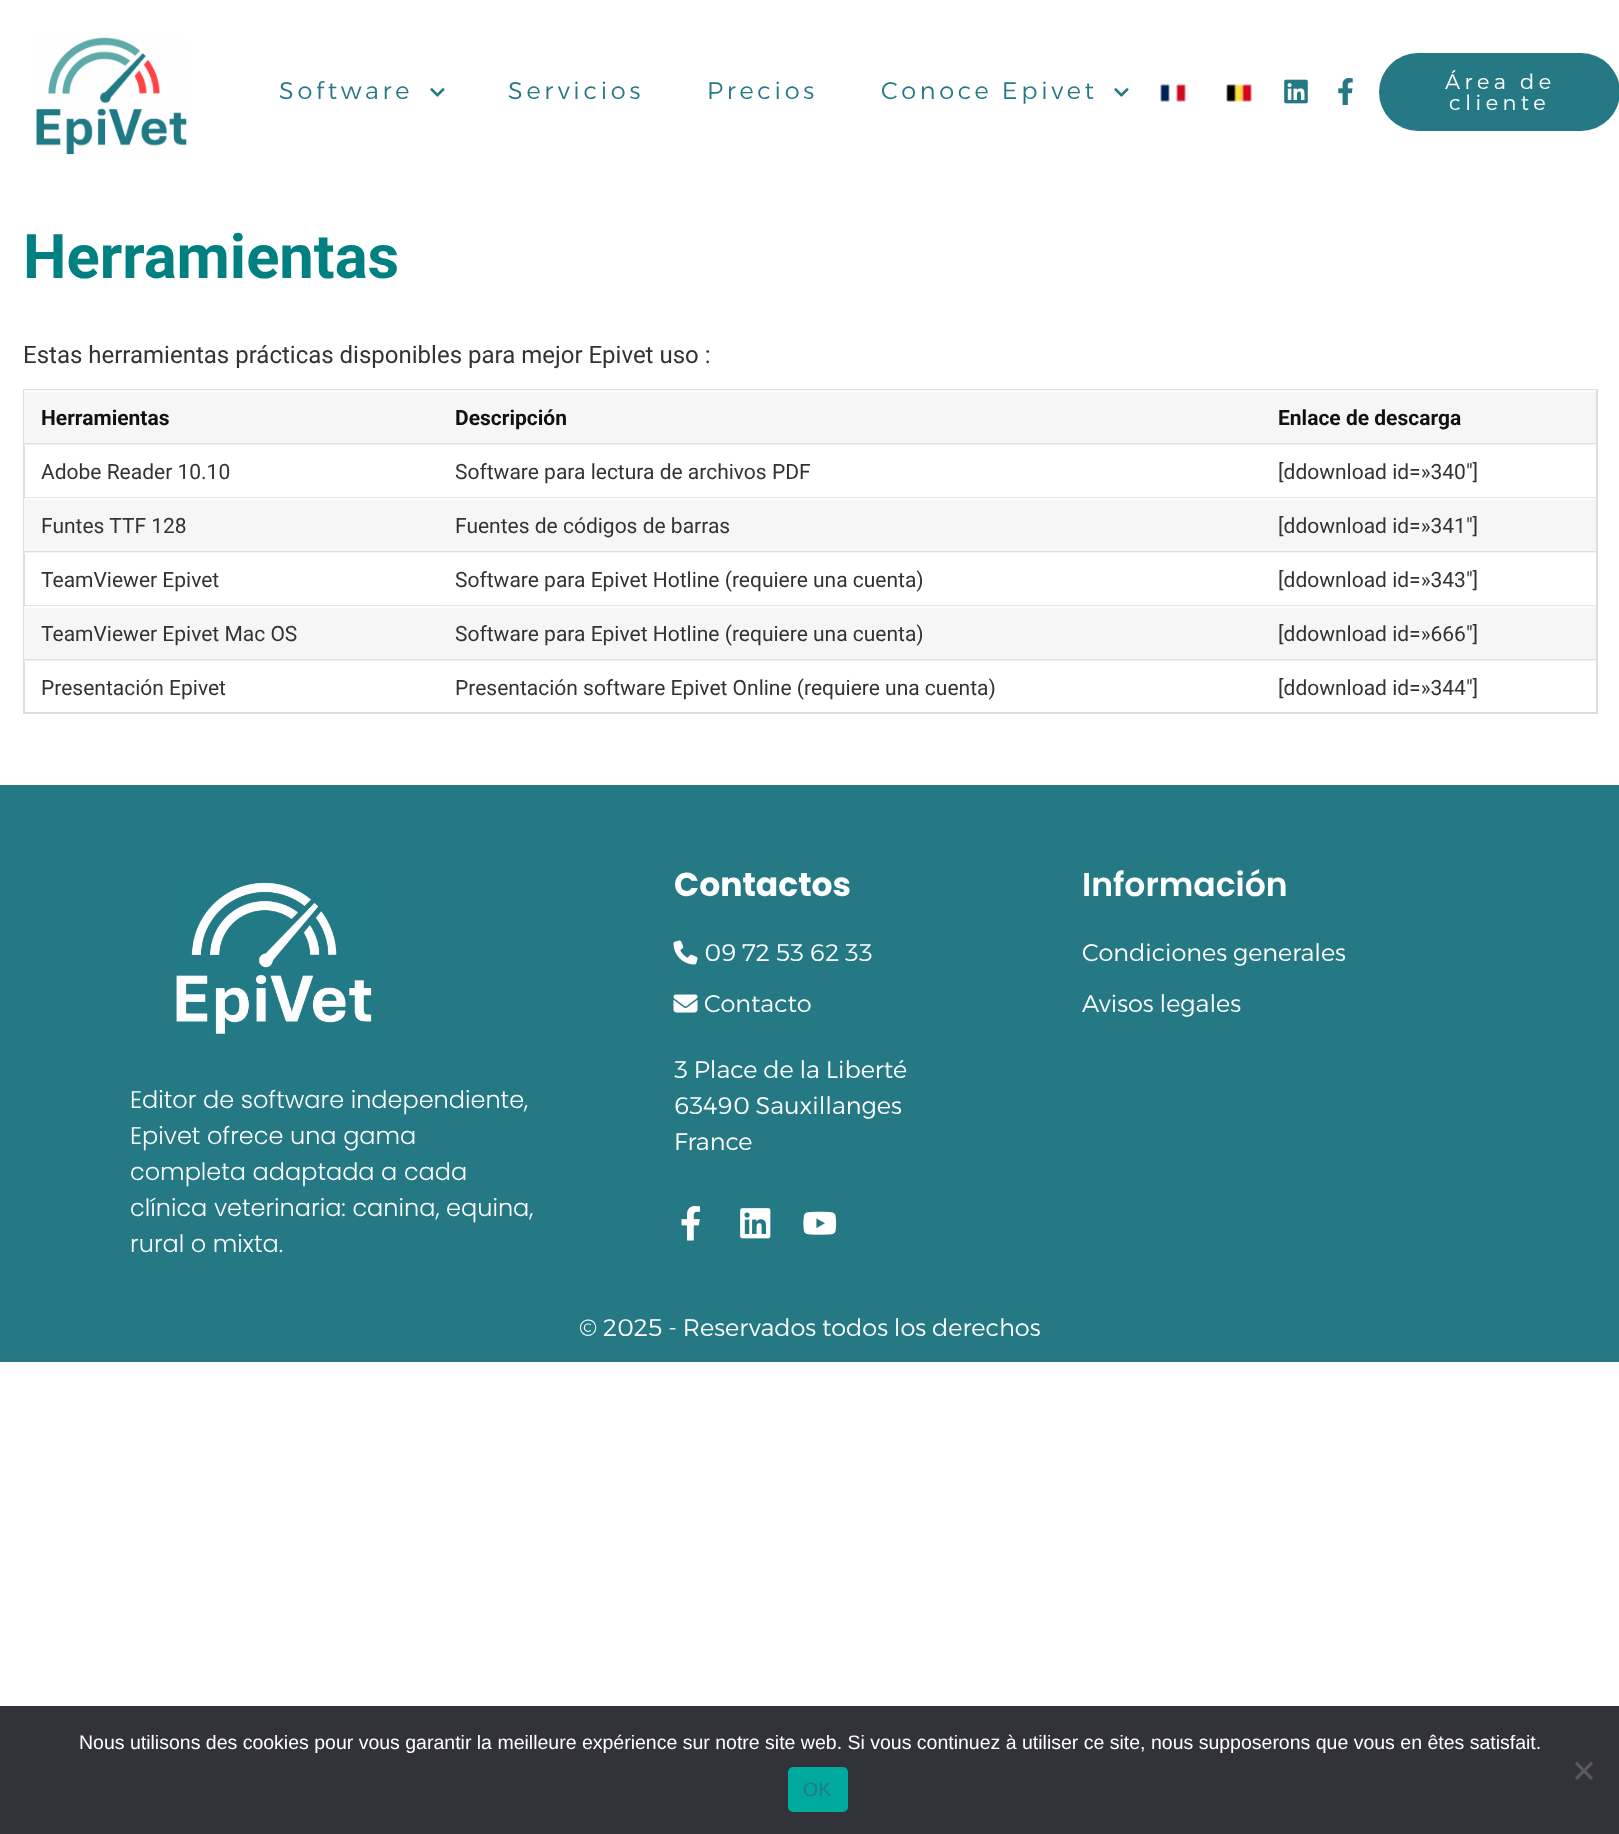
<svg xmlns="http://www.w3.org/2000/svg" width="1619" height="1834">
<rect width="100%" height="100%" fill="#fff"/>
<rect x="440" y="660" width="1156" height="1" fill="#f5f5f5"/>
<rect x="440" y="552" width="1156" height="1" fill="#f5f5f5"/>
<rect x="440" y="444" width="1156" height="1" fill="#f5f5f5"/>
<image x="36" y="37" width="151" height="118" href="media/1.png"/>
<text x="279" y="99" style="font-family:Alexandria;font-size:24px;font-weight:300;letter-spacing:3.75px;fill:#257985">Software</text>
<image x="430" y="88" width="15" height="9" href="media/2.png"/>
<text x="508" y="99" style="font-family:Alexandria;font-size:24px;font-weight:300;letter-spacing:3.75px;fill:#257985">Servicios</text>
<text x="707" y="99" style="font-family:Alexandria;font-size:24px;font-weight:300;letter-spacing:3.75px;fill:#257985">Precios</text>
<text x="881" y="99" style="font-family:Alexandria;font-size:24px;font-weight:300;letter-spacing:3.75px;fill:#257985">Conoce Epivet</text>
<image x="1114" y="88" width="15" height="9" href="media/2.png"/>
<image x="1160" y="84" width="26" height="18" href="media/3.png"/>
<image x="1226" y="84" width="26" height="18" href="media/4.png"/>
<image x="1284" y="79" width="24" height="25" href="media/5.png"/>
<image x="1338" y="78" width="15" height="27" href="media/6.png"/>
<rect x="1379" y="53" width="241" height="78" rx="39" fill="#257985"/>
<text x="1445" y="89" style="font-family:Alexandria;font-size:21px;font-weight:300;letter-spacing:4.5px;fill:#fff">Área de</text>
<text x="1449" y="110" style="font-family:Alexandria;font-size:21px;font-weight:300;letter-spacing:4.5px;fill:#fff">cliente</text>
<text x="23" y="278" style="font-family:Roboto;font-size:61.5px;font-weight:bold;fill:#008080">Herramientas</text>
<text x="23" y="363" style="font-family:Roboto;font-size:24px;fill:#333">Estas herramientas prácticas disponibles para mejor Epivet uso :</text>
<rect x="24" y="390" width="1573" height="323" fill="none" stroke="#e0dddd" stroke-width="2"/>
<rect x="24" y="392" width="416" height="52" fill="#f6f6f6"/>
<rect x="24" y="390" width="1572" height="2" fill="#fbfbfb"/>
<rect x="24" y="443" width="416" height="2" fill="#0000001a"/>
<text x="41" y="425" style="font-family:Roboto;font-size:21px;font-weight:bold;fill:#111">Herramientas</text>
<rect x="440" y="392" width="1156" height="51" fill="#f6f6f6"/>
<rect x="440" y="443" width="1156" height="1" fill="#ddd"/>
<text x="455" y="425" style="font-family:Roboto;font-size:21px;font-weight:bold;fill:#111">Descripción</text>
<text x="1278" y="425" style="font-family:Roboto;font-size:21px;font-weight:bold;fill:#111">Enlace de descarga</text>
<rect x="24" y="444" width="416" height="2" fill="#ffffff99"/>
<rect x="24" y="497" width="416" height="1" fill="#0000001a"/>
<text x="41" y="479" style="font-family:Roboto;font-size:21px;fill:#333">Adobe Reader 10.10</text>
<rect x="440" y="497" width="1156" height="1" fill="#e6e6e6"/>
<text x="455" y="479" style="font-family:Roboto;font-size:21px;fill:#333">Software para lectura de archivos PDF</text>
<text x="1278" y="479" style="font-family:Roboto;font-size:21px;fill:#333">[ddownload id=»340″]</text>
<rect x="24" y="500" width="1572" height="52" fill="#f6f6f6"/>
<rect x="440" y="551" width="1156" height="1" fill="#ddd"/>
<rect x="24" y="498" width="1572" height="2" fill="#fbfbfb"/>
<rect x="24" y="551" width="416" height="2" fill="#0000001a"/>
<text x="41" y="533" style="font-family:Roboto;font-size:21px;fill:#333">Funtes TTF 128</text>
<text x="455" y="533" style="font-family:Roboto;font-size:21px;fill:#333">Fuentes de códigos de barras</text>
<text x="1278" y="533" style="font-family:Roboto;font-size:21px;fill:#333">[ddownload id=»341″]</text>
<rect x="24" y="552" width="416" height="2" fill="#ffffff99"/>
<rect x="24" y="605" width="416" height="1" fill="#0000001a"/>
<text x="41" y="587" style="font-family:Roboto;font-size:21px;fill:#333">TeamViewer Epivet</text>
<rect x="440" y="605" width="1156" height="1" fill="#e6e6e6"/>
<text x="455" y="587" style="font-family:Roboto;font-size:21px;fill:#333">Software para Epivet Hotline (requiere una cuenta)</text>
<text x="1278" y="587" style="font-family:Roboto;font-size:21px;fill:#333">[ddownload id=»343″]</text>
<rect x="24" y="608" width="1572" height="52" fill="#f6f6f6"/>
<rect x="440" y="659" width="1156" height="1" fill="#ddd"/>
<rect x="24" y="606" width="1572" height="2" fill="#fbfbfb"/>
<rect x="24" y="659" width="416" height="2" fill="#0000001a"/>
<text x="41" y="641" style="font-family:Roboto;font-size:21px;fill:#333">TeamViewer Epivet Mac OS</text>
<text x="455" y="641" style="font-family:Roboto;font-size:21px;fill:#333">Software para Epivet Hotline (requiere una cuenta)</text>
<text x="1278" y="641" style="font-family:Roboto;font-size:21px;fill:#333">[ddownload id=»666″]</text>
<rect x="24" y="660" width="416" height="2" fill="#ffffff99"/>
<text x="41" y="695" style="font-family:Roboto;font-size:21px;fill:#333">Presentación Epivet</text>
<text x="455" y="695" style="font-family:Roboto;font-size:21px;fill:#333">Presentación software Epivet Online (requiere una cuenta)</text>
<text x="1278" y="695" style="font-family:Roboto;font-size:21px;fill:#333">[ddownload id=»344″]</text>
<rect y="785" width="1619" height="577" fill="#257985"/>
<text x="674" y="896" style="font-family:Poppins;font-size:33px;font-weight:bold;fill:#fff">Contactos</text>
<image x="673" y="940" width="25" height="25" href="media/7.png"/>
<text x="704" y="961" style="font-family:Alexandria;font-size:24px;font-weight:300;fill:#fff">09 72 53 62 33</text>
<image x="673" y="994" width="25" height="19" href="media/8.png"/>
<text x="704" y="1012" style="font-family:Alexandria;font-size:24px;font-weight:300;fill:#fff">Contacto</text>
<text x="674" y="1078" style="font-family:Alexandria;font-size:24px;font-weight:300;fill:#fff">3 Place de la Liberté</text>
<text x="674" y="1114" style="font-family:Alexandria;font-size:24px;font-weight:300;fill:#fff">63490 Sauxillanges</text>
<text x="674" y="1150" style="font-family:Alexandria;font-size:24px;font-weight:300;fill:#fff">France</text>
<image x="681" y="1206" width="19" height="35" href="media/9.png"/>
<image x="740" y="1208" width="31" height="31" href="media/10.png"/>
<image x="803" y="1211" width="34" height="24" href="media/11.png"/>
<text x="1082" y="896" style="font-family:Poppins;font-size:33px;font-weight:600;fill:#fff">Información</text>
<text x="1082" y="961" style="font-family:Alexandria;font-size:24px;font-weight:300;fill:#fff">Condiciones generales</text>
<text x="1082" y="1012" style="font-family:Alexandria;font-size:24px;font-weight:300;fill:#fff">Avisos legales</text>
<image x="176" y="882" width="196" height="152" href="media/12.png"/>
<text x="130" y="1108" style="font-family:Poppins;font-size:24px;font-weight:300;fill:#fff">Editor de software independiente,</text>
<text x="130" y="1144" style="font-family:Poppins;font-size:24px;font-weight:300;fill:#fff">Epivet ofrece una gama</text>
<text x="130" y="1180" style="font-family:Poppins;font-size:24px;font-weight:300;fill:#fff">completa adaptada a cada</text>
<text x="130" y="1216" style="font-family:Poppins;font-size:24px;font-weight:300;fill:#fff">clínica veterinaria: canina, equina,</text>
<text x="130" y="1252" style="font-family:Poppins;font-size:24px;font-weight:300;fill:#fff">rural o mixta.</text>
<text x="579" y="1336" style="font-family:Alexandria;font-size:24px;font-weight:300;fill:#fff">© 2025 - Reservados todos los derechos</text>
<rect y="1706" width="1619" height="128" fill="#32323a"/>
<text x="79" y="1749" style="font-family:Liberation Sans;font-size:19.5px;fill:#fff">Nous utilisons des cookies pour vous garantir la meilleure expérience sur notre site web. Si vous continuez à utiliser ce site, nous supposerons que vous en êtes satisfait.</text>
<path d="M1591 1761.5l2 2.5l-16 16l-2-2.5z" fill="#59595d"/>
<path d="M1575 1764l2-2.5l16 16l-2 2.5z" fill="#59595d"/>
<rect x="788" y="1767" width="60" height="45" rx="5" fill="#00a99d"/>
<text x="803" y="1796" style="font-family:Liberation Sans;font-size:19.5px;fill:#257985">OK</text>
</svg>
